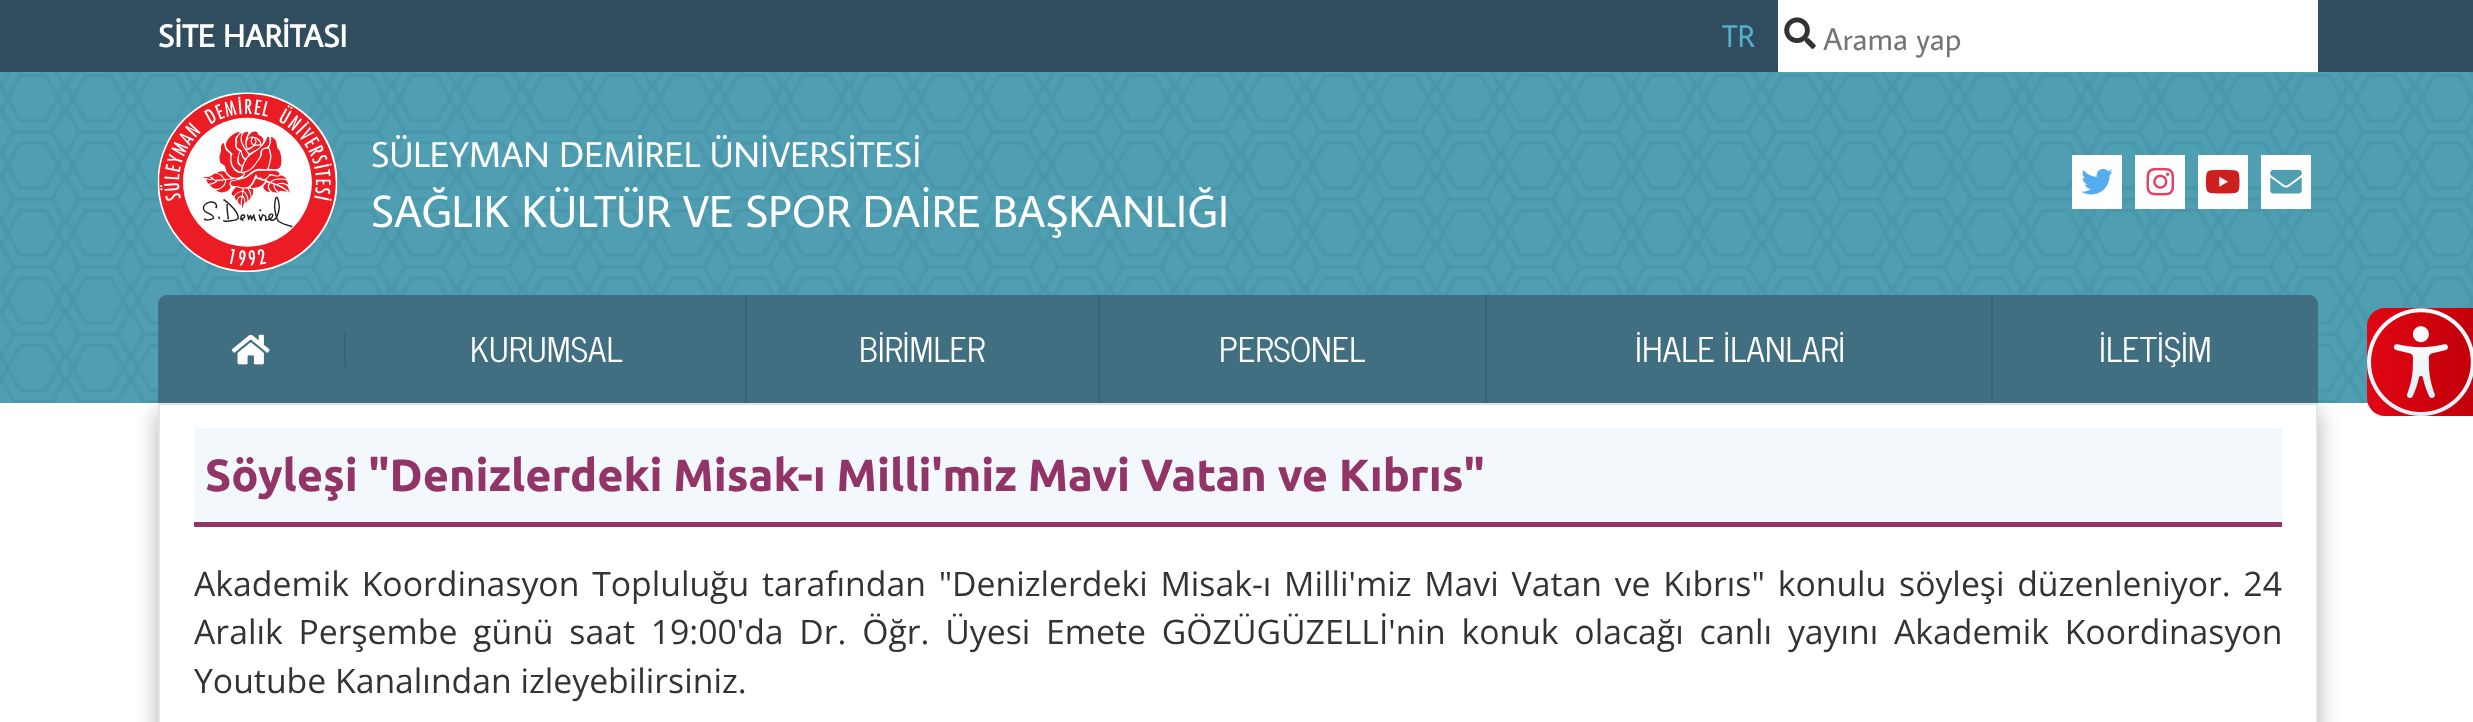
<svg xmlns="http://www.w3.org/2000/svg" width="2473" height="722">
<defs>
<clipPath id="clip1"><path d="M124 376h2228v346h-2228zm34 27h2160v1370h-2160z" clip-rule="evenodd"/></clipPath>
<linearGradient id="g1" gradientUnits="userSpaceOnUse" x1="2364" y1="362" x2="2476" y2="363"><stop offset="0" stop-color="#e10613"/><stop offset="0.99" stop-color="#c2000a"/></linearGradient>
</defs>
<rect width="100%" height="100%" fill="#fff"/>
<rect y="72" width="2473" height="331" fill="#4f9eb2"/>
<image x="0" y="72" width="2473" height="331" href="media/1.png"/>
<rect width="2473" height="72" fill="#2f4d5f"/>
<text x="158" y="47" style="font-family:Average Sans;font-size:31.5px;font-weight:bold;fill:#fff">SİTE HARİTASI</text>
<text x="1722" y="47" style="font-family:Average Sans;font-size:31.5px;fill:#52aec9">TR</text>
<rect x="1778" width="540" height="72" fill="#fff"/>
<image x="1784" y="17" width="32" height="32" href="media/2.png"/>
<text x="1823" y="50" style="font-family:Average Sans;font-size:31.5px;fill:#757575">Arama yap</text>
<image x="157" y="92" width="181" height="180" href="media/3.png"/>
<text x="371" y="167" style="font-family:Average Sans;font-size:36px;fill:#fff">SÜLEYMAN DEMİREL ÜNİVERSİTESİ</text>
<text x="371" y="227" style="font-family:Average Sans;font-size:45px;fill:#fff">SAĞLIK KÜLTÜR VE SPOR DAİRE BAŞKANLIĞI</text>
<rect x="2072" y="155" width="50" height="54" fill="#fff"/>
<image x="2081" y="168" width="32" height="27" href="media/4.png"/>
<rect x="2135" y="155" width="50" height="54" fill="#fff"/>
<image x="2146" y="167" width="29" height="29" href="media/5.png"/>
<rect x="2198" y="155" width="50" height="54" fill="#fff"/>
<image x="2205" y="169" width="35" height="25" href="media/6.png"/>
<rect x="2261" y="155" width="50" height="54" fill="#fff"/>
<image x="2270" y="169" width="32" height="25" href="media/7.png"/>
<g clip-path="url(#clip1)">
<rect x="158" y="410" width="2160" height="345" fill="#0000004d" filter="blur(11px)"/>
</g>
<path d="M167 295h2142c5 0 9 4 9 9v99h-2160v-99c0-5 4-9 9-9z" fill="#3f6f81"/>
<rect x="344" y="333" width="2" height="34" fill="#396474"/>
<image x="231" y="334" width="39" height="31" href="media/8.png"/>
<rect x="745" y="295" width="2" height="108" fill="#396474"/>
<text x="470" y="362" style="font-family:News Cycle;font-size:33.75px;font-weight:500;fill:#fff">KURUMSAL</text>
<rect x="1098" y="295" width="2" height="108" fill="#396474"/>
<text x="859" y="362" style="font-family:News Cycle;font-size:33.75px;font-weight:500;fill:#fff">BİRİMLER</text>
<rect x="1485" y="295" width="2" height="108" fill="#396474"/>
<text x="1219" y="362" style="font-family:News Cycle;font-size:33.75px;font-weight:500;fill:#fff">PERSONEL</text>
<rect x="1991" y="295" width="2" height="108" fill="#396474"/>
<text x="1635" y="362" style="font-family:News Cycle;font-size:33.75px;font-weight:500;fill:#fff">İHALE İLANLARİ</text>
<text x="2099" y="362" style="font-family:News Cycle;font-size:33.75px;font-weight:500;fill:#fff">İLETİŞİM</text>
<path d="M2385 308h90v108h-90c-10 0-18-8-18-18v-72c0-10 8-18 18-18z" fill="url(#g1)"/>
<image x="2367" y="308" width="106" height="108" href="media/9.png"/>
<rect x="159" y="404" width="2158" height="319" fill="none" stroke="#e4e4e4" stroke-width="2"/>
<rect x="194" y="428" width="2088" height="94" fill="#f3f8fd"/>
<rect x="194" y="522" width="2088" height="5" fill="#933469"/>
<text x="205" y="491" style="font-family:Ubuntu;font-size:45px;font-weight:bold;fill:#933469">Söyleşi "Denizlerdeki Misak-ı Milli'miz Mavi Vatan ve Kıbrıs"</text>
<text x="194" y="596" word-spacing="4" style="font-family:Open Sans;font-size:33.75px;fill:#333">Akademik Koordinasyon Topluluğu tarafından "Denizlerdeki Misak-ı Milli'miz Mavi Vatan ve Kıbrıs" konulu söyleşi düzenleniyor. 24</text>
<text x="194" y="644" word-spacing="7" style="font-family:Open Sans;font-size:33.75px;fill:#333">Aralık Perşembe günü saat 19:00'da Dr. Öğr. Üyesi Emete GÖZÜGÜZELLİ'nin konuk olacağı canlı yayını Akademik Koordinasyon</text>
<text x="194" y="693" style="font-family:Open Sans;font-size:33.75px;fill:#333">Youtube Kanalından izleyebilirsiniz.</text>
</svg>
